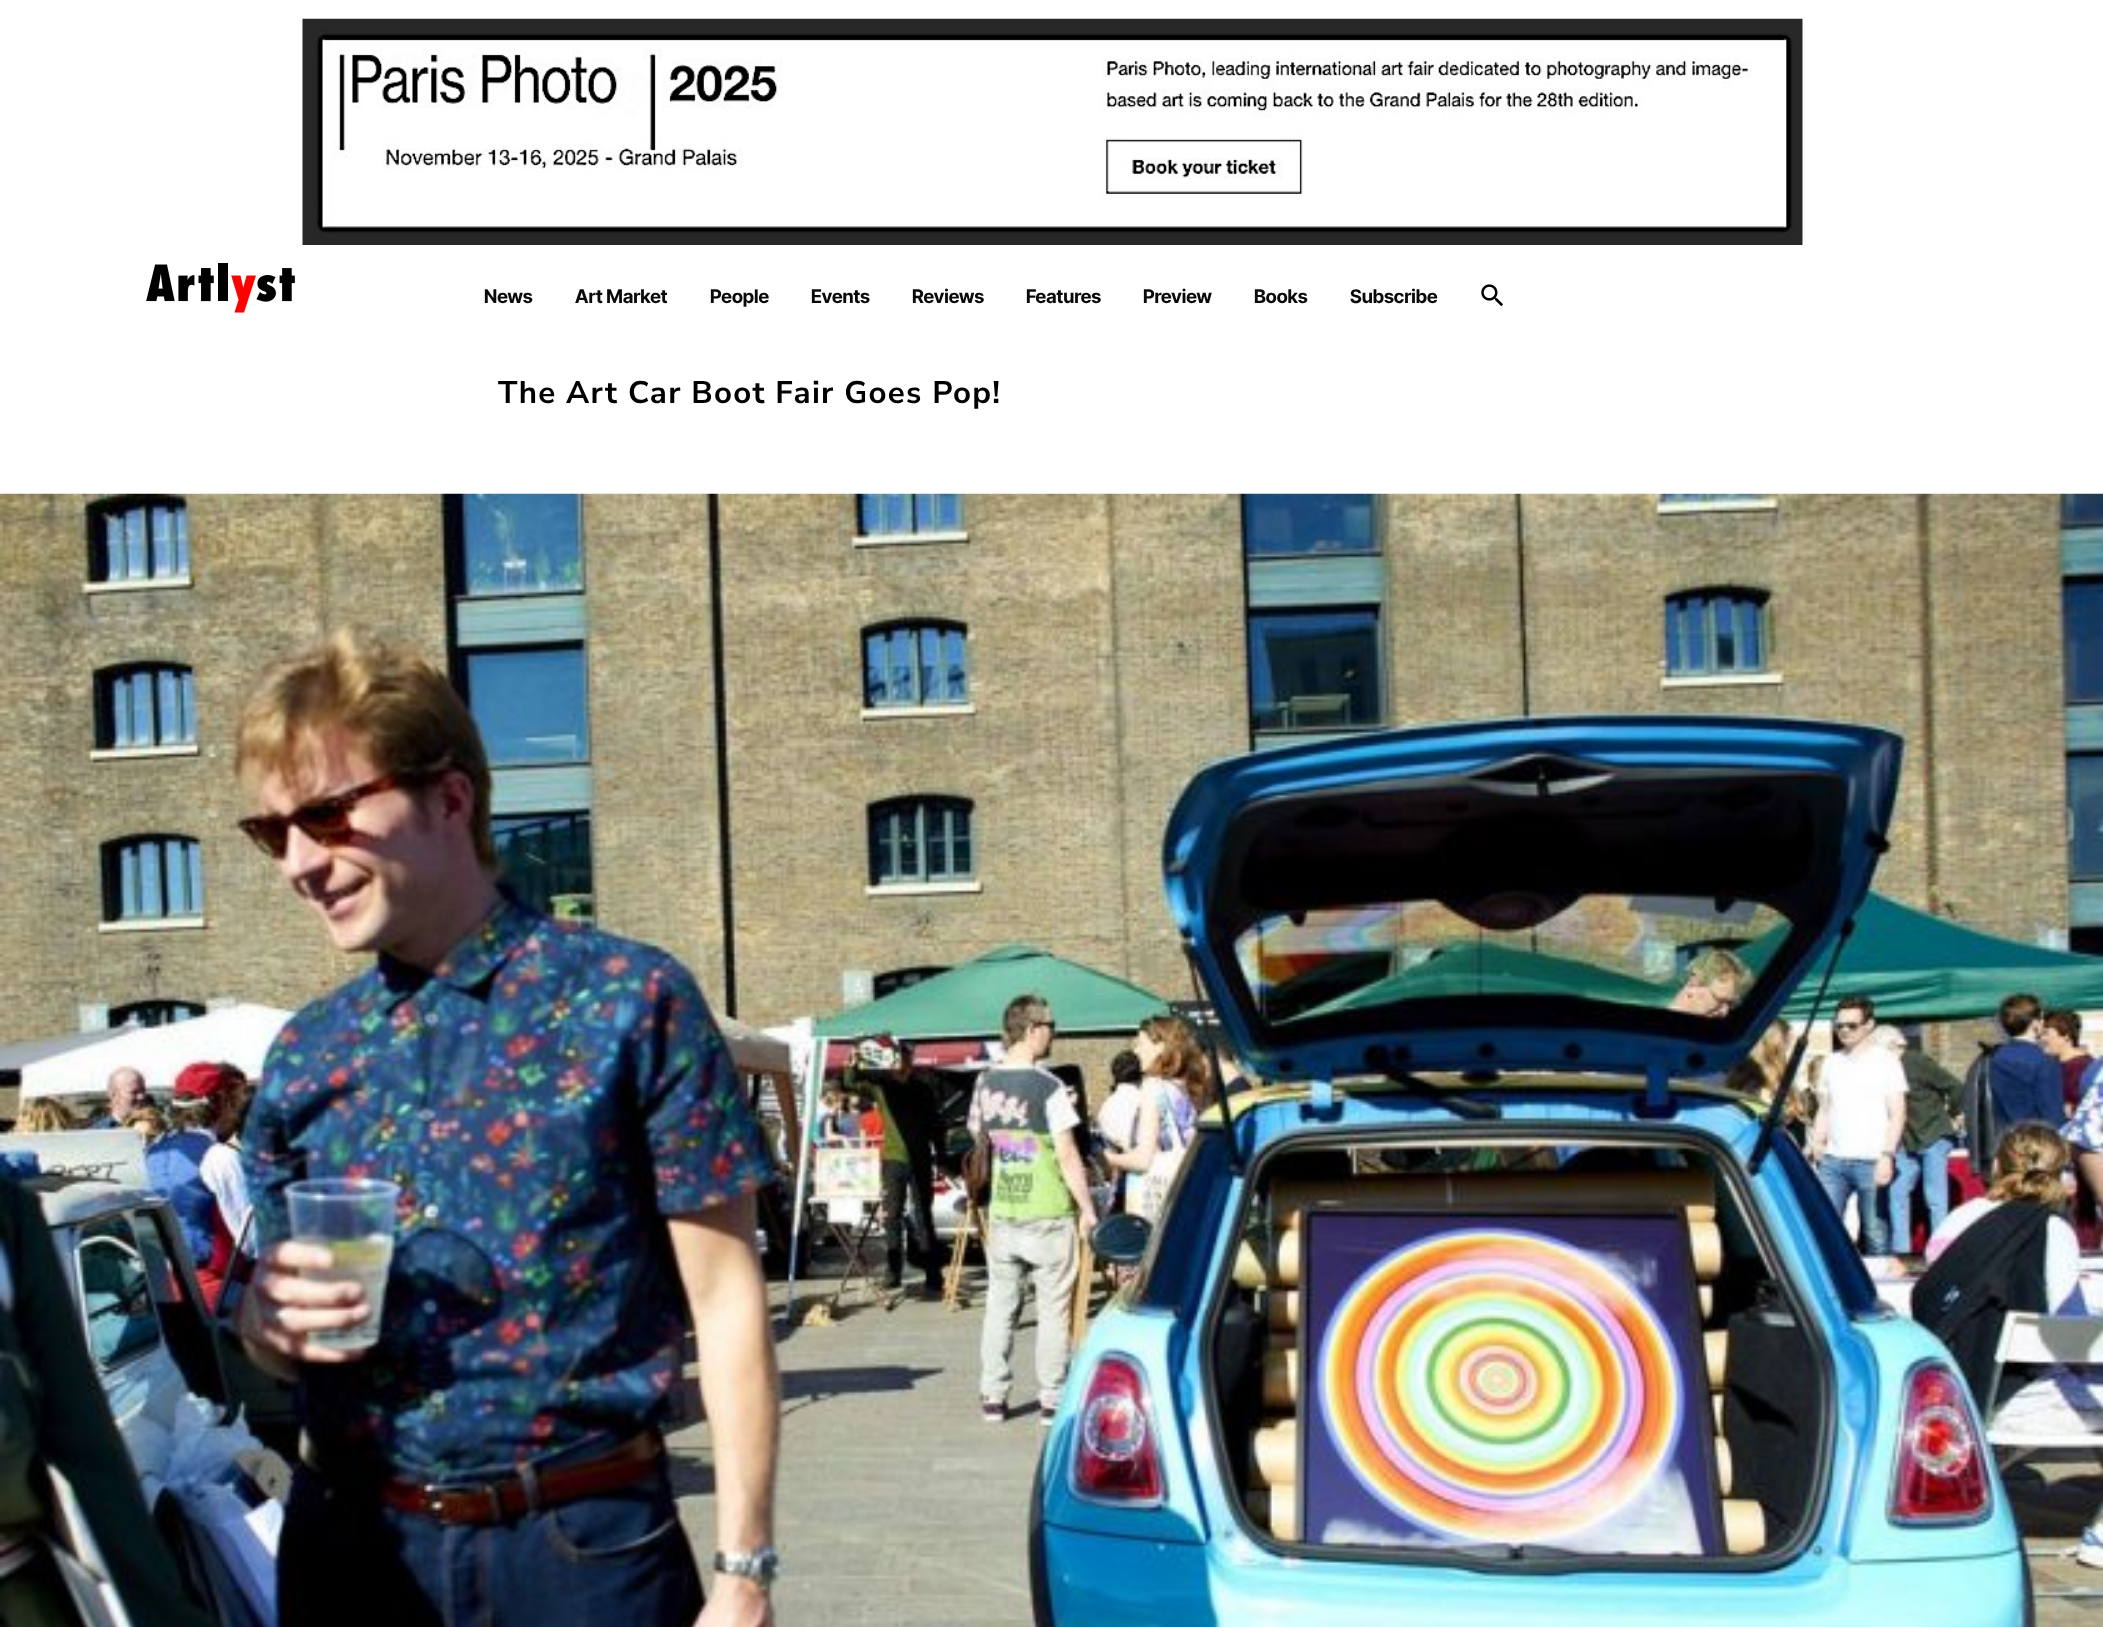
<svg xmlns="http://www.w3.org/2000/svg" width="2103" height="1627">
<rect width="100%" height="100%" fill="#fff"/>
<image x="302" y="18" width="1501" height="227" href="media/1.png"/>
<image x="146" y="263" width="149" height="50" href="media/2.png"/>
<text x="484" y="303" style="font-family:Inter Tight;font-size:18.75px;font-weight:bold;fill:#0a0a0a">News</text>
<text x="575" y="303" style="font-family:Inter Tight;font-size:18.75px;font-weight:bold;fill:#0a0a0a">Art Market</text>
<text x="710" y="303" style="font-family:Inter Tight;font-size:18.75px;font-weight:bold;fill:#0a0a0a">People</text>
<text x="811" y="303" style="font-family:Inter Tight;font-size:18.75px;font-weight:bold;fill:#0a0a0a">Events</text>
<text x="912" y="303" style="font-family:Inter Tight;font-size:18.75px;font-weight:bold;fill:#0a0a0a">Reviews</text>
<text x="1026" y="303" style="font-family:Inter Tight;font-size:18.75px;font-weight:bold;fill:#0a0a0a">Features</text>
<text x="1143" y="303" style="font-family:Inter Tight;font-size:18.75px;font-weight:bold;fill:#0a0a0a">Preview</text>
<text x="1254" y="303" style="font-family:Inter Tight;font-size:18.75px;font-weight:bold;fill:#0a0a0a">Books</text>
<text x="1350" y="303" style="font-family:Inter Tight;font-size:18.75px;font-weight:bold;fill:#0a0a0a">Subscribe</text>
<image x="1481" y="284" width="22" height="23" href="media/3.png"/>
<text x="498" y="403" style="font-family:Nunito Sans;font-size:31.25px;font-weight:bold;letter-spacing:1.25px;fill:#000">The Art Car Boot Fair Goes Pop!</text>
<image x="0" y="493" width="2103" height="1134" href="media/4.png"/>
</svg>
